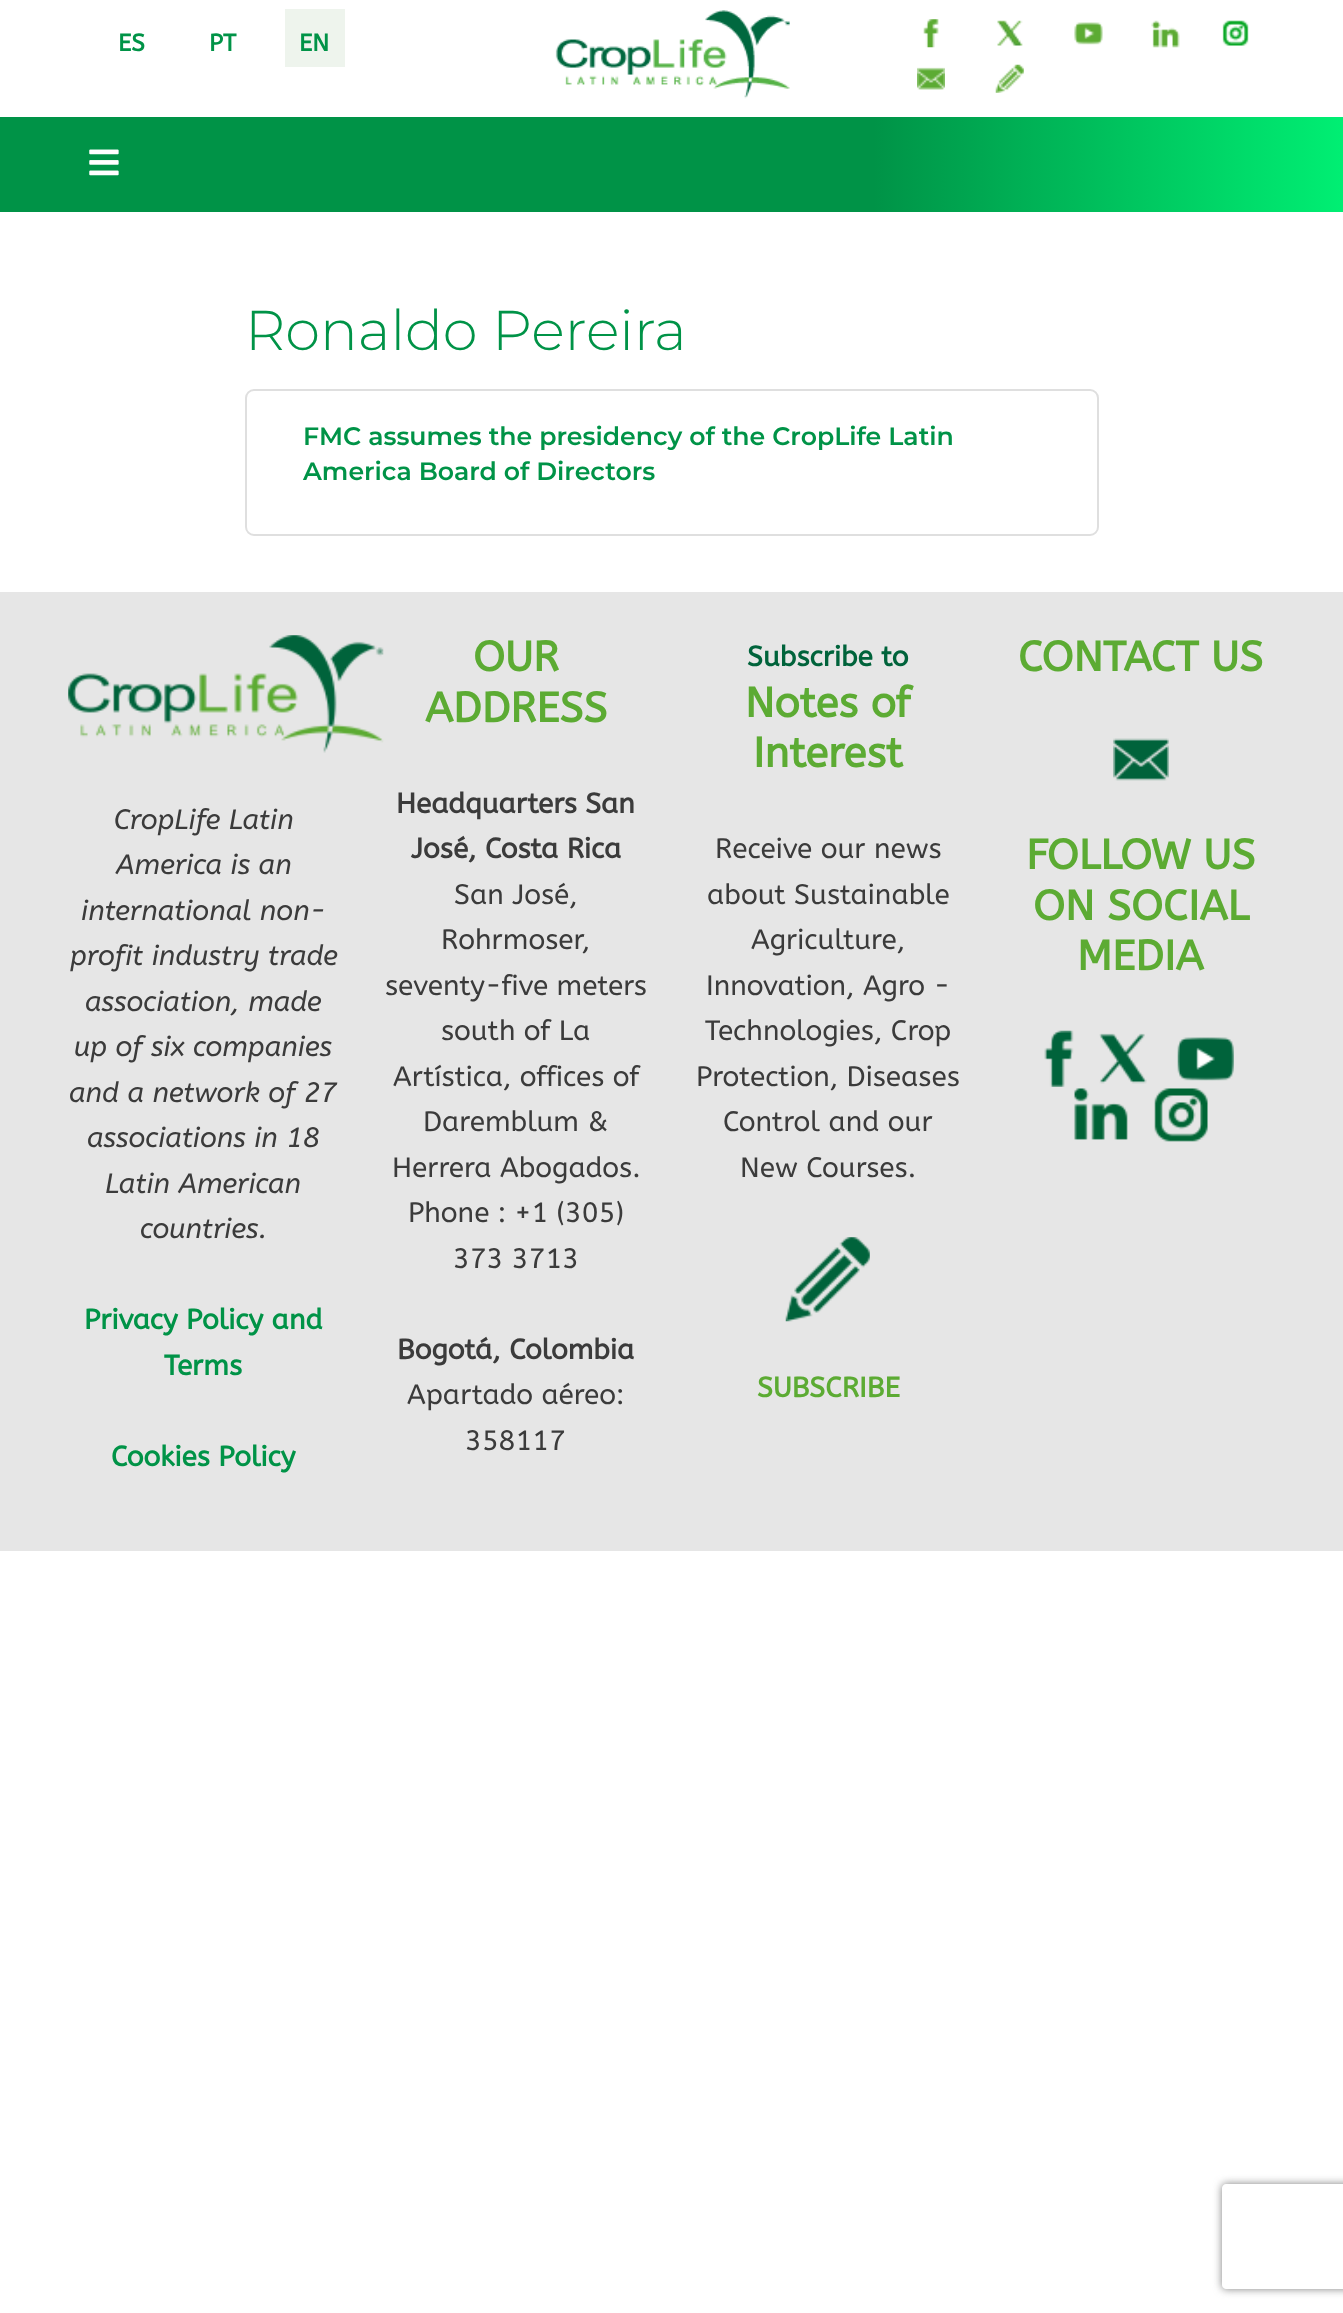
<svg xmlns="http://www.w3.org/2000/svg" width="1343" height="2313">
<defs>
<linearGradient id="g1" gradientUnits="userSpaceOnUse" x1="0" y1="165" x2="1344" y2="164"><stop offset="0" stop-color="#009347"/><stop offset="0.65" stop-color="#009347"/><stop offset="1" stop-color="#00ef73"/></linearGradient>
<clipPath id="clip1"><path d="M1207 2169h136v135h-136zm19 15h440c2 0 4 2 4 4v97c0 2-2 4-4 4h-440c-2 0-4-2-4-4v-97c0-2 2-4 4-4z" clip-rule="evenodd"/></clipPath>
</defs>
<rect width="100%" height="100%" fill="#fff"/>
<text x="118" y="51" style="font-family:ABeeZee;font-size:24px;font-weight:bold;fill:#009347">ES</text>
<text x="209" y="51" style="font-family:ABeeZee;font-size:24px;font-weight:bold;fill:#009347">PT</text>
<rect x="285" y="9" width="60" height="58" fill="#eef4ed"/>
<text x="299" y="51" style="font-family:ABeeZee;font-size:24px;font-weight:bold;fill:#009347">EN</text>
<image x="555" y="10" width="235" height="89" href="media/1.png"/>
<image x="923" y="19" width="16" height="29" href="media/2.png"/>
<image x="997" y="20" width="26" height="26" href="media/3.png"/>
<image x="1074" y="22" width="29" height="23" href="media/4.png"/>
<image x="1151" y="20" width="29" height="28" href="media/5.png"/>
<image x="1222" y="20" width="27" height="26" href="media/6.png"/>
<image x="917" y="67" width="28" height="23" href="media/7.png"/>
<image x="995" y="64" width="29" height="29" href="media/8.png"/>
<rect y="117" width="1343" height="95" fill="url(#g1)"/>
<image x="89" y="149" width="30" height="27" href="media/9.png"/>
<text x="245" y="350" style="font-family:Montserrat;font-size:56px;font-weight:300;fill:#009347">Ronaldo Pereira</text>
<rect x="246" y="390" width="852" height="145" rx="8" fill="none" stroke="#dfdfdf" stroke-width="2"/>
<text x="303" y="445" style="font-family:Montserrat;font-size:25.2px;font-weight:600;fill:#009347">FMC assumes the presidency of the CropLife Latin</text>
<text x="303" y="480" style="font-family:Montserrat;font-size:25.2px;font-weight:600;fill:#009347">America Board of Directors</text>
<rect y="592" width="1343" height="959" fill="#e6e6e6"/>
<image x="68" y="635" width="316" height="118" href="media/10.png"/>
<text x="114" y="829" style="font-family:ABeeZee;font-size:28px;font-style:italic;fill:#3b3b3b">CropLife Latin</text>
<text x="116" y="874" style="font-family:ABeeZee;font-size:28px;font-style:italic;fill:#3b3b3b">America is an</text>
<text x="81" y="920" style="font-family:ABeeZee;font-size:28px;font-style:italic;fill:#3b3b3b">international non-</text>
<text x="70" y="965" style="font-family:ABeeZee;font-size:28px;font-style:italic;fill:#3b3b3b">profit industry trade</text>
<text x="85" y="1011" style="font-family:ABeeZee;font-size:28px;font-style:italic;fill:#3b3b3b">association, made</text>
<text x="74" y="1056" style="font-family:ABeeZee;font-size:28px;font-style:italic;fill:#3b3b3b">up of six companies</text>
<text x="69" y="1102" style="font-family:ABeeZee;font-size:28px;font-style:italic;fill:#3b3b3b">and a network of 27</text>
<text x="87" y="1147" style="font-family:ABeeZee;font-size:28px;font-style:italic;fill:#3b3b3b">associations in 18</text>
<text x="105" y="1193" style="font-family:ABeeZee;font-size:28px;font-style:italic;fill:#3b3b3b">Latin American</text>
<text x="140" y="1238" style="font-family:ABeeZee;font-size:28px;font-style:italic;fill:#3b3b3b">countries.</text>
<text x="84" y="1329" style="font-family:ABeeZee;font-size:28px;font-weight:bold;fill:#009347">Privacy Policy and</text>
<text x="164" y="1375" style="font-family:ABeeZee;font-size:28px;font-weight:bold;fill:#009347">Terms</text>
<text x="111" y="1466" style="font-family:ABeeZee;font-size:28px;font-weight:bold;fill:#009347">Cookies Policy</text>
<text x="473" y="671" style="font-family:ABeeZee;font-size:42px;font-weight:bold;fill:#5cab33">OUR</text>
<text x="425" y="722" style="font-family:ABeeZee;font-size:42px;font-weight:bold;fill:#5cab33">ADDRESS</text>
<text x="396" y="813" style="font-family:ABeeZee;font-size:28px;font-weight:bold;fill:#3b3b3b">Headquarters San</text>
<text x="411" y="858" style="font-family:ABeeZee;font-size:28px;font-weight:bold;fill:#3b3b3b">José, Costa Rica</text>
<text x="454" y="904" style="font-family:ABeeZee;font-size:28px;fill:#3b3b3b">San José,</text>
<text x="441" y="949" style="font-family:ABeeZee;font-size:28px;fill:#3b3b3b">Rohrmoser,</text>
<text x="385" y="995" style="font-family:ABeeZee;font-size:28px;fill:#3b3b3b">seventy-five meters</text>
<text x="441" y="1040" style="font-family:ABeeZee;font-size:28px;fill:#3b3b3b">south of La</text>
<text x="393" y="1086" style="font-family:ABeeZee;font-size:28px;fill:#3b3b3b">Artística, offices of</text>
<text x="423" y="1131" style="font-family:ABeeZee;font-size:28px;fill:#3b3b3b">Daremblum &amp;</text>
<text x="392" y="1177" style="font-family:ABeeZee;font-size:28px;fill:#3b3b3b">Herrera Abogados.</text>
<text x="408" y="1222" style="font-family:ABeeZee;font-size:28px;fill:#3b3b3b">Phone : +1 (305)</text>
<text x="453" y="1268" style="font-family:ABeeZee;font-size:28px;fill:#3b3b3b">373 3713</text>
<text x="397" y="1359" style="font-family:ABeeZee;font-size:28px;font-weight:bold;fill:#3b3b3b">Bogotá, Colombia</text>
<text x="407" y="1404" style="font-family:ABeeZee;font-size:28px;fill:#3b3b3b">Apartado aéreo:</text>
<text x="465" y="1450" style="font-family:ABeeZee;font-size:28px;fill:#3b3b3b">358117</text>
<text x="747" y="666" style="font-family:ABeeZee;font-size:28px;font-weight:bold;fill:#00633b">Subscribe to</text>
<text x="745" y="717" style="font-family:ABeeZee;font-size:42px;font-weight:bold;fill:#5cab33">Notes of</text>
<text x="753" y="767" style="font-family:ABeeZee;font-size:42px;font-weight:bold;fill:#5cab33">Interest</text>
<text x="715" y="858" style="font-family:ABeeZee;font-size:28px;fill:#3b3b3b">Receive our news</text>
<text x="707" y="904" style="font-family:ABeeZee;font-size:28px;fill:#3b3b3b">about Sustainable</text>
<text x="751" y="949" style="font-family:ABeeZee;font-size:28px;fill:#3b3b3b">Agriculture,</text>
<text x="706" y="995" style="font-family:ABeeZee;font-size:28px;fill:#3b3b3b">Innovation, Agro -</text>
<text x="705" y="1040" style="font-family:ABeeZee;font-size:28px;fill:#3b3b3b">Technologies, Crop</text>
<text x="696" y="1086" style="font-family:ABeeZee;font-size:28px;fill:#3b3b3b">Protection, Diseases</text>
<text x="723" y="1131" style="font-family:ABeeZee;font-size:28px;fill:#3b3b3b">Control and our</text>
<text x="740" y="1177" style="font-family:ABeeZee;font-size:28px;fill:#3b3b3b">New Courses.</text>
<image x="785" y="1237" width="85" height="85" href="media/11.png"/>
<text x="757" y="1397" style="font-family:ABeeZee;font-size:28px;font-weight:bold;fill:#5cab33">SUBSCRIBE</text>
<text x="1018" y="671" style="font-family:ABeeZee;font-size:42px;font-weight:bold;fill:#5cab33">CONTACT US</text>
<image x="1113" y="738" width="56" height="43" href="media/12.png"/>
<text x="1026" y="869" style="font-family:ABeeZee;font-size:42px;font-weight:bold;fill:#5cab33">FOLLOW US</text>
<text x="1033" y="920" style="font-family:ABeeZee;font-size:42px;font-weight:bold;fill:#5cab33">ON SOCIAL</text>
<text x="1077" y="970" style="font-family:ABeeZee;font-size:42px;font-weight:bold;fill:#5cab33">MEDIA</text>
<image x="1044" y="1030" width="30" height="57" href="media/13.png"/>
<image x="1099" y="1033" width="48" height="51" href="media/14.png"/>
<image x="1177" y="1037" width="57" height="44" href="media/15.png"/>
<image x="1074" y="1088" width="54" height="52" href="media/16.png"/>
<image x="1154" y="1088" width="54" height="54" href="media/17.png"/>
<g clip-path="url(#clip1)">
<rect x="1222" y="2184" width="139" height="105" rx="4" fill="#808080" filter="blur(4.5px)"/>
</g>
</svg>
